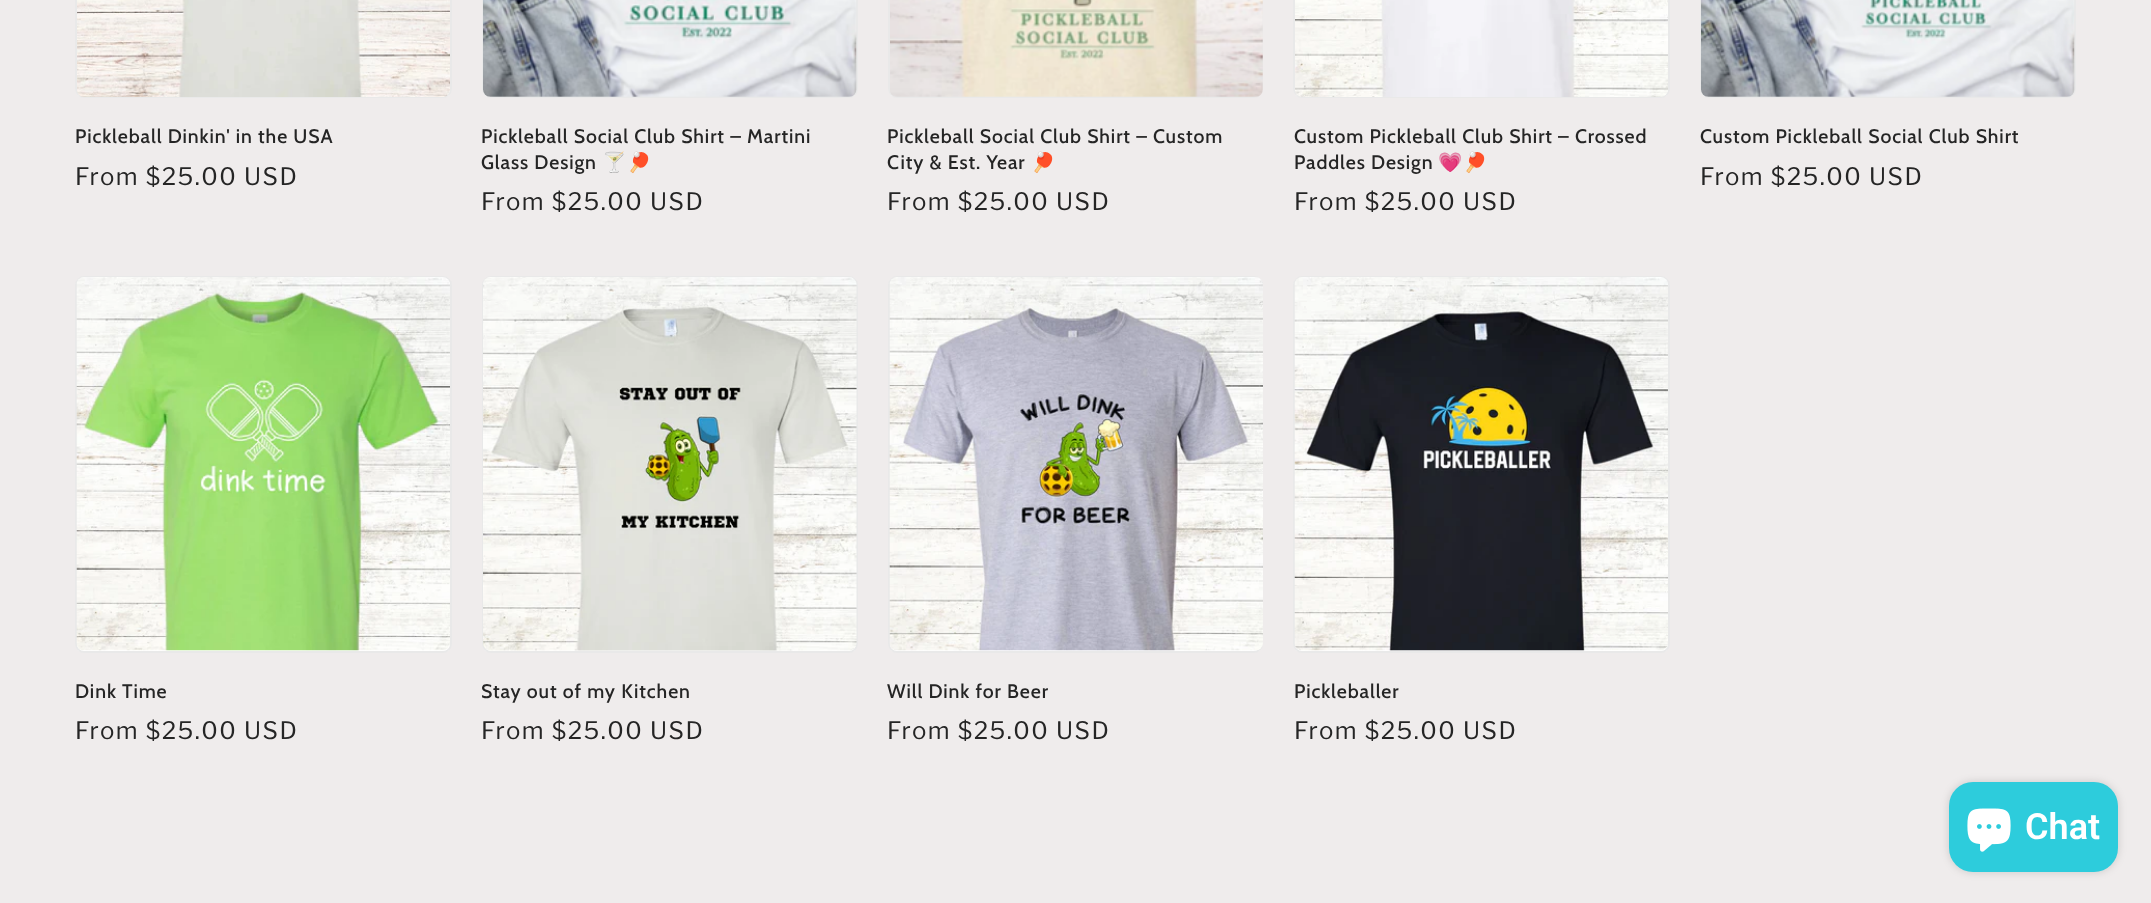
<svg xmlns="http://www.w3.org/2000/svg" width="2151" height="903">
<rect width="100%" height="100%" fill="#efecec"/>
<rect x="75" y="-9" width="377" height="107" rx="9" fill="#fff"/>
<rect x="76" y="-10" width="375" height="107" rx="8" fill="none" stroke="#2525251a" stroke-width="2"/>
<image x="77" y="0" width="373" height="97" href="media/1.png"/>
<text x="75" y="143" style="font-family:Cabin;font-size:19.5px;font-weight:500;letter-spacing:0.9px;fill:#252525">Pickleball Dinkin' in the USA</text>
<text x="75" y="185" style="font-family:Libre Franklin;font-size:24px;letter-spacing:1.5px;fill:#252525">From $25.00 USD</text>
<rect x="482" y="-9" width="376" height="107" rx="9" fill="#fff"/>
<rect x="483" y="-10" width="374" height="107" rx="8" fill="none" stroke="#2525251a" stroke-width="2"/>
<image x="483" y="0" width="374" height="97" href="media/2.png"/>
<text x="481" y="143" style="font-family:Cabin;font-size:19.5px;font-weight:500;letter-spacing:0.9px;fill:#252525">Pickleball Social Club Shirt – Martini</text>
<text x="481" y="169" style="font-family:Cabin;font-size:19.5px;font-weight:500;letter-spacing:0.9px;fill:#252525">Glass Design</text>
<text x="602" y="169" style="font-family:Noto Color Emoji;font-size:19.5px;letter-spacing:0.9px;fill:#252525">🍸🏓</text>
<text x="481" y="210" style="font-family:Libre Franklin;font-size:24px;letter-spacing:1.5px;fill:#252525">From $25.00 USD</text>
<rect x="888" y="-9" width="375" height="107" rx="9" fill="#fff"/>
<rect x="889" y="-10" width="373" height="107" rx="8" fill="none" stroke="#2525251a" stroke-width="2"/>
<image x="890" y="0" width="373" height="97" href="media/3.png"/>
<text x="887" y="143" style="font-family:Cabin;font-size:19.5px;font-weight:500;letter-spacing:0.9px;fill:#252525">Pickleball Social Club Shirt – Custom</text>
<text x="887" y="169" style="font-family:Cabin;font-size:19.5px;font-weight:500;letter-spacing:0.9px;fill:#252525">City &amp; Est. Year</text>
<text x="1031" y="169" style="font-family:Noto Color Emoji;font-size:19.5px;letter-spacing:0.9px;fill:#252525">🏓</text>
<text x="887" y="210" style="font-family:Libre Franklin;font-size:24px;letter-spacing:1.5px;fill:#252525">From $25.00 USD</text>
<rect x="1293" y="-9" width="377" height="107" rx="9" fill="#fff"/>
<rect x="1294" y="-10" width="375" height="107" rx="8" fill="none" stroke="#2525251a" stroke-width="2"/>
<image x="1295" y="0" width="373" height="97" href="media/4.png"/>
<text x="1294" y="143" style="font-family:Cabin;font-size:19.5px;font-weight:500;letter-spacing:0.9px;fill:#252525">Custom Pickleball Club Shirt – Crossed</text>
<text x="1294" y="169" style="font-family:Cabin;font-size:19.5px;font-weight:500;letter-spacing:0.9px;fill:#252525">Paddles Design</text>
<text x="1438" y="169" style="font-family:Noto Color Emoji;font-size:19.5px;letter-spacing:0.9px;fill:#252525">💗🏓</text>
<text x="1294" y="210" style="font-family:Libre Franklin;font-size:24px;letter-spacing:1.5px;fill:#252525">From $25.00 USD</text>
<rect x="1700" y="-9" width="376" height="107" rx="9" fill="#fff"/>
<rect x="1701" y="-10" width="374" height="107" rx="8" fill="none" stroke="#2525251a" stroke-width="2"/>
<image x="1701" y="0" width="374" height="97" href="media/5.png"/>
<text x="1700" y="143" style="font-family:Cabin;font-size:19.5px;font-weight:500;letter-spacing:0.9px;fill:#252525">Custom Pickleball Social Club Shirt</text>
<text x="1700" y="185" style="font-family:Libre Franklin;font-size:24px;letter-spacing:1.5px;fill:#252525">From $25.00 USD</text>
<rect x="75" y="276" width="377" height="377" rx="9" fill="#fff"/>
<rect x="76" y="277" width="375" height="375" rx="8" fill="none" stroke="#2525251a" stroke-width="2"/>
<image x="76" y="277" width="374" height="374" href="media/6.png"/>
<text x="75" y="698" style="font-family:Cabin;font-size:19.5px;font-weight:500;letter-spacing:0.9px;fill:#252525">Dink Time</text>
<text x="75" y="739" style="font-family:Libre Franklin;font-size:24px;letter-spacing:1.5px;fill:#252525">From $25.00 USD</text>
<rect x="482" y="276" width="376" height="377" rx="9" fill="#fff"/>
<rect x="483" y="277" width="374" height="375" rx="8" fill="none" stroke="#2525251a" stroke-width="2"/>
<image x="483" y="277" width="374" height="374" href="media/7.png"/>
<text x="481" y="698" style="font-family:Cabin;font-size:19.5px;font-weight:500;letter-spacing:0.9px;fill:#252525">Stay out of my Kitchen</text>
<text x="481" y="739" style="font-family:Libre Franklin;font-size:24px;letter-spacing:1.5px;fill:#252525">From $25.00 USD</text>
<rect x="888" y="276" width="375" height="377" rx="9" fill="#fff"/>
<rect x="889" y="277" width="373" height="375" rx="8" fill="none" stroke="#2525251a" stroke-width="2"/>
<image x="889" y="277" width="374" height="374" href="media/8.png"/>
<text x="887" y="698" style="font-family:Cabin;font-size:19.5px;font-weight:500;letter-spacing:0.9px;fill:#252525">Will Dink for Beer</text>
<text x="887" y="739" style="font-family:Libre Franklin;font-size:24px;letter-spacing:1.5px;fill:#252525">From $25.00 USD</text>
<rect x="1293" y="276" width="377" height="377" rx="9" fill="#fff"/>
<rect x="1294" y="277" width="375" height="375" rx="8" fill="none" stroke="#2525251a" stroke-width="2"/>
<image x="1294" y="277" width="374" height="374" href="media/9.png"/>
<text x="1294" y="698" style="font-family:Cabin;font-size:19.5px;font-weight:500;letter-spacing:0.9px;fill:#252525">Pickleballer</text>
<text x="1294" y="739" style="font-family:Libre Franklin;font-size:24px;letter-spacing:1.5px;fill:#252525">From $25.00 USD</text>
<rect x="1949" y="782" width="169" height="90" rx="24" fill="#00000026" filter="blur(4px)"/>
<rect x="1949" y="782" width="169" height="90" rx="24" fill="#2dccdc"/>
<image x="1967" y="808" width="44" height="44" href="media/10.png"/>
<text x="2025" y="839" style="font-family:Roboto;font-size:36px;font-weight:600;fill:#fff">Chat</text>
</svg>
